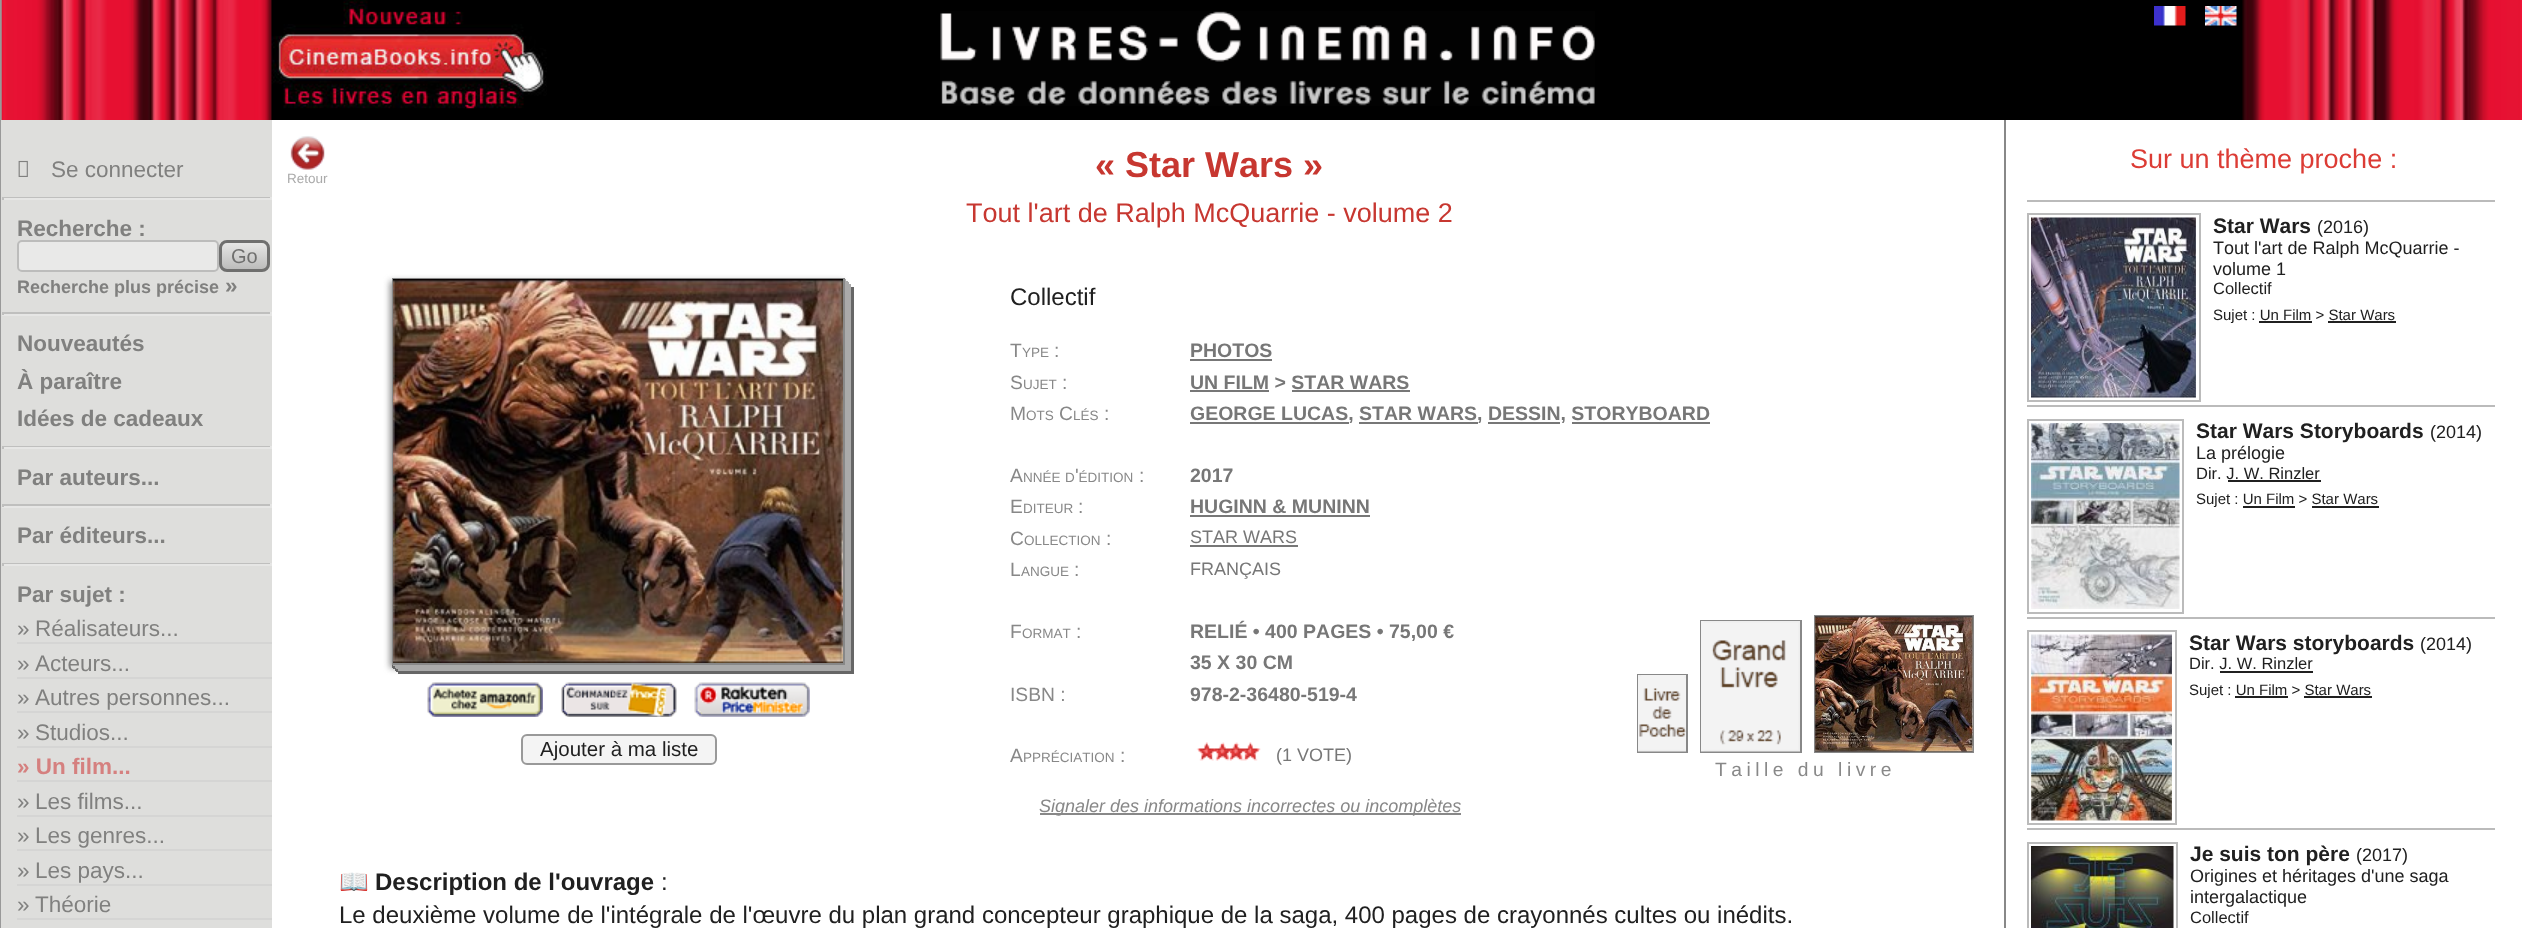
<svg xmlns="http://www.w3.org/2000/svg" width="2522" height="928">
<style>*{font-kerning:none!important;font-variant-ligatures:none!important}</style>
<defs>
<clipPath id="clip1"><rect x="219" y="240" width="51" height="32" rx="8"/></clipPath>
<linearGradient id="g1" gradientUnits="userSpaceOnUse" x1="245" y1="243" x2="245" y2="269"><stop offset="0" stop-color="#e6e6e5"/><stop offset="1" stop-color="#bcbcbb"/></linearGradient>
</defs>
<rect width="100%" height="100%" fill="#fff"/>
<rect width="2" height="120" fill="#999"/>
<rect x="547" width="1696" height="120" fill="#000"/>
<image x="2242" y="0" width="280" height="120" href="media/1.png"/>
<image x="1" y="0" width="271" height="120" href="media/2.png"/>
<image x="940" y="11" width="655" height="95" href="media/3.png"/>
<image x="271" y="0" width="276" height="120" href="media/4.png"/>
<image x="2154" y="6" width="32" height="20" href="media/5.png"/>
<image x="2205" y="6" width="32" height="20" href="media/6.png"/>
<rect y="120" width="1" height="808" fill="#999"/>
<rect x="1" y="120" width="271" height="808" fill="#dededc"/>
<image x="18" y="160" width="10" height="17" href="media/7.png"/>
<text x="51" y="177" style="font-family:Liberation Sans;font-size:22.5px;fill:#80807f">Se connecter</text>
<rect x="2" y="197" width="270" height="1" fill="#bfbfbe"/>
<rect x="270" y="197" width="2" height="3" fill="#e6e6e5"/>
<rect x="2" y="198" width="270" height="2" fill="#e6e6e5"/>
<rect x="2" y="197" width="2" height="3" fill="#bfbfbe"/>
<text x="17" y="236" style="font-family:Liberation Sans;font-size:22.5px;font-weight:bold;fill:#80807f">Recherche :</text>
<rect x="18" y="241" width="200" height="30" rx="4" fill="#e9e9e8" stroke="#bcbcbb" stroke-width="2"/>
<g clip-path="url(#clip1)">
<rect x="219" y="243" width="51" height="26" fill="url(#g1)"/>
</g>
<rect x="220.5" y="241.5" width="48" height="29" rx="6.5" fill="none" stroke="#6f6f6e" stroke-width="3"/>
<text x="231" y="263" style="font-family:Liberation Sans;font-size:20px;fill:#6f6f6e">Go</text>
<text x="17" y="293" style="font-family:Liberation Sans;font-size:18px;font-weight:bold;fill:#80807f">Recherche plus précise</text>
<text x="225" y="293" style="font-family:Liberation Sans;font-size:22.5px;font-weight:bold;fill:#80807f">»</text>
<rect x="2" y="312" width="270" height="2" fill="#bfbfbe"/>
<rect x="270" y="312" width="2" height="3" fill="#e6e6e5"/>
<rect x="2" y="314" width="270" height="2" fill="#e6e6e5"/>
<rect x="2" y="312" width="2" height="3" fill="#bfbfbe"/>
<text x="17" y="351" style="font-family:Liberation Sans;font-size:22.5px;font-weight:bold;fill:#80807f">Nouveautés</text>
<text x="17" y="389" style="font-family:Liberation Sans;font-size:22.5px;font-weight:bold;fill:#80807f">À paraître</text>
<text x="17" y="426" style="font-family:Liberation Sans;font-size:22.5px;font-weight:bold;fill:#80807f">Idées de cadeaux</text>
<rect x="2" y="446" width="270" height="1" fill="#bfbfbe"/>
<rect x="270" y="446" width="2" height="3" fill="#e6e6e5"/>
<rect x="2" y="447" width="270" height="2" fill="#e6e6e5"/>
<rect x="2" y="446" width="2" height="3" fill="#bfbfbe"/>
<text x="17" y="485" style="font-family:Liberation Sans;font-size:22.5px;font-weight:bold;fill:#80807f">Par auteurs...</text>
<rect x="2" y="504" width="270" height="2" fill="#bfbfbe"/>
<rect x="270" y="504" width="2" height="3" fill="#e6e6e5"/>
<rect x="2" y="506" width="270" height="2" fill="#e6e6e5"/>
<rect x="2" y="504" width="2" height="3" fill="#bfbfbe"/>
<text x="17" y="543" style="font-family:Liberation Sans;font-size:22.5px;font-weight:bold;fill:#80807f">Par éditeurs...</text>
<rect x="2" y="563" width="270" height="1" fill="#bfbfbe"/>
<rect x="270" y="563" width="2" height="3" fill="#e6e6e5"/>
<rect x="2" y="564" width="270" height="2" fill="#e6e6e5"/>
<rect x="2" y="563" width="2" height="3" fill="#bfbfbe"/>
<text x="17" y="602" style="font-family:Liberation Sans;font-size:22.5px;font-weight:bold;fill:#80807f">Par sujet :</text>
<rect x="17" y="642" width="255" height="2" fill="#d5d5d4"/>
<text x="17" y="636" style="font-family:Liberation Sans;font-size:22.5px;fill:#80807f">»</text>
<text x="35" y="636" style="font-family:Liberation Sans;font-size:22.5px;fill:#80807f">Réalisateurs...</text>
<rect x="17" y="677" width="255" height="2" fill="#d5d5d4"/>
<text x="17" y="671" style="font-family:Liberation Sans;font-size:22.5px;fill:#80807f">»</text>
<text x="35" y="671" style="font-family:Liberation Sans;font-size:22.5px;fill:#80807f">Acteurs...</text>
<rect x="17" y="711" width="255" height="2" fill="#d5d5d4"/>
<text x="17" y="705" style="font-family:Liberation Sans;font-size:22.5px;fill:#80807f">»</text>
<text x="35" y="705" style="font-family:Liberation Sans;font-size:22.5px;fill:#80807f">Autres personnes...</text>
<rect x="17" y="746" width="255" height="2" fill="#d5d5d4"/>
<text x="17" y="740" style="font-family:Liberation Sans;font-size:22.5px;fill:#80807f">»</text>
<text x="35" y="740" style="font-family:Liberation Sans;font-size:22.5px;fill:#80807f">Studios...</text>
<rect x="17" y="780" width="255" height="2" fill="#d5d5d4"/>
<text x="17" y="774" style="font-family:Liberation Sans;font-size:22.5px;font-weight:bold;fill:#d5807f">» Un film...</text>
<rect x="17" y="815" width="255" height="2" fill="#d5d5d4"/>
<text x="17" y="809" style="font-family:Liberation Sans;font-size:22.5px;fill:#80807f">»</text>
<text x="35" y="809" style="font-family:Liberation Sans;font-size:22.5px;fill:#80807f">Les films...</text>
<rect x="17" y="849" width="255" height="2" fill="#d5d5d4"/>
<text x="17" y="843" style="font-family:Liberation Sans;font-size:22.5px;fill:#80807f">»</text>
<text x="35" y="843" style="font-family:Liberation Sans;font-size:22.5px;fill:#80807f">Les genres...</text>
<rect x="17" y="884" width="255" height="2" fill="#d5d5d4"/>
<text x="17" y="878" style="font-family:Liberation Sans;font-size:22.5px;fill:#80807f">»</text>
<text x="35" y="878" style="font-family:Liberation Sans;font-size:22.5px;fill:#80807f">Les pays...</text>
<rect x="17" y="918" width="255" height="2" fill="#d5d5d4"/>
<text x="17" y="912" style="font-family:Liberation Sans;font-size:22.5px;fill:#80807f">»</text>
<text x="35" y="912" style="font-family:Liberation Sans;font-size:22.5px;fill:#80807f">Théorie</text>
<image x="290" y="135" width="35" height="35" href="media/8.png"/>
<text x="287" y="183" style="font-family:Liberation Sans;font-size:13.5px;fill:#aaa">Retour</text>
<text x="1095" y="177" style="font-family:Liberation Sans;font-size:36px;font-weight:bold;fill:#c73730">« Star Wars »</text>
<rect x="2004" y="120" width="2" height="808" fill="#888"/>
<text x="2130" y="168" style="font-family:Liberation Sans;font-size:27px;fill:#dc3c35">Sur un thème proche :</text>
<rect x="2027" y="200" width="468" height="2" fill="#bbb"/>
<rect x="2028" y="214" width="172" height="187" fill="none" stroke="#bbb" stroke-width="2"/>
<image x="2031" y="217" width="165" height="181" href="media/9.png"/>
<text x="2213" y="233" style="font-family:Liberation Sans;font-size:21px;font-weight:bold;fill:#202020">Star Wars</text>
<text x="2317" y="233" style="font-family:Liberation Sans;font-size:18px;fill:#202020">(2016)</text>
<text x="2213" y="254" style="font-family:Liberation Sans;font-size:18px;fill:#202020">Tout l'art de Ralph McQuarrie -</text>
<text x="2213" y="275" style="font-family:Liberation Sans;font-size:18px;fill:#202020">volume 1</text>
<text x="2213" y="294" style="font-family:Liberation Sans;font-size:16.5px;fill:#202020">Collectif</text>
<text x="2213" y="320" style="font-family:Liberation Sans;font-size:15px;fill:#202020">Sujet : Un Film &gt; Star Wars</text>
<rect x="2259" y="321" width="53" height="2" fill="#202020"/>
<rect x="2328" y="321" width="68" height="2" fill="#202020"/>
<rect x="2027" y="405" width="468" height="2" fill="#bbb"/>
<rect x="2028" y="420" width="155" height="193" fill="none" stroke="#bbb" stroke-width="2"/>
<image x="2031" y="423" width="149" height="186" href="media/10.png"/>
<text x="2196" y="438" style="font-family:Liberation Sans;font-size:21px;font-weight:bold;fill:#202020">Star Wars Storyboards</text>
<text x="2430" y="438" style="font-family:Liberation Sans;font-size:18px;fill:#202020">(2014)</text>
<text x="2196" y="459" style="font-family:Liberation Sans;font-size:18px;fill:#202020">La prélogie</text>
<text x="2196" y="479" style="font-family:Liberation Sans;font-size:16.5px;fill:#202020">Dir. J. W. Rinzler</text>
<rect x="2228" y="480" width="93" height="2" fill="#202020"/>
<text x="2196" y="504" style="font-family:Liberation Sans;font-size:15px;fill:#202020">Sujet : Un Film &gt; Star Wars</text>
<rect x="2243" y="506" width="52" height="2" fill="#202020"/>
<rect x="2312" y="506" width="67" height="2" fill="#202020"/>
<rect x="2027" y="617" width="468" height="2" fill="#bbb"/>
<rect x="2028" y="631" width="148" height="193" fill="none" stroke="#bbb" stroke-width="2"/>
<image x="2031" y="634" width="141" height="187" href="media/11.png"/>
<text x="2189" y="650" style="font-family:Liberation Sans;font-size:21px;font-weight:bold;fill:#202020">Star Wars storyboards</text>
<text x="2420" y="650" style="font-family:Liberation Sans;font-size:18px;fill:#202020">(2014)</text>
<text x="2189" y="669" style="font-family:Liberation Sans;font-size:16.5px;fill:#202020">Dir. J. W. Rinzler</text>
<rect x="2220" y="671" width="93" height="2" fill="#202020"/>
<text x="2189" y="695" style="font-family:Liberation Sans;font-size:15px;fill:#202020">Sujet : Un Film &gt; Star Wars</text>
<rect x="2235" y="696" width="53" height="2" fill="#202020"/>
<rect x="2304" y="696" width="68" height="2" fill="#202020"/>
<rect x="2027" y="828" width="468" height="2" fill="#bbb"/>
<rect x="2028" y="843" width="149" height="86" fill="none" stroke="#bbb" stroke-width="2"/>
<image x="2031" y="846" width="143" height="82" href="media/12.png"/>
<text x="2190" y="861" style="font-family:Liberation Sans;font-size:21px;font-weight:bold;fill:#202020">Je suis ton père</text>
<text x="2356" y="861" style="font-family:Liberation Sans;font-size:18px;fill:#202020">(2017)</text>
<text x="2190" y="882" style="font-family:Liberation Sans;font-size:18px;fill:#202020">Origines et héritages d'une saga</text>
<text x="2190" y="903" style="font-family:Liberation Sans;font-size:18px;fill:#202020">intergalactique</text>
<text x="2190" y="923" style="font-family:Liberation Sans;font-size:16.5px;fill:#202020">Collectif</text>
<text x="966" y="222" style="font-family:Liberation Sans;font-size:27px;fill:#c73730">Tout l'art de Ralph McQuarrie - volume 2</text>
<rect x="390" y="281" width="453" height="387" fill="#888" filter="blur(3px)"/>
<path d="M401 664v10h453v-387h-10v377z" fill="#666"/>
<path d="M398 664v10h453v-387h-7v377z" fill="#666"/>
<path d="M396 664v8h453v-387h-5v379z" fill="#666"/>
<path d="M395 664v7h453v-387h-4v380z" fill="#666"/>
<path d="M393 664v5h453v-387h-2v382z" fill="#666"/>
<path d="M392 664v4h453v-387h-1v383z" fill="#666"/>
<path d="M398 664v7h453v-387h-7v380z" fill="#aaa"/>
<path d="M396 664v5h453v-387h-5v382z" fill="#aaa"/>
<path d="M395 664v4h453v-387h-4v383z" fill="#aaa"/>
<path d="M393 664v2h453v-387h-2v385z" fill="#aaa"/>
<rect x="393" y="279" width="451" height="385" fill="none" stroke="#888" stroke-width="2"/>
<image x="393" y="279" width="450" height="384" href="media/13.png"/>
<image x="427" y="682" width="116" height="35" href="media/14.png"/>
<image x="561" y="682" width="116" height="35" href="media/15.png"/>
<image x="694" y="682" width="116" height="35" href="media/16.png"/>
<rect x="522" y="735" width="194" height="29" rx="5" fill="#f4f4f4" stroke="#999" stroke-width="2"/>
<text x="540" y="756" style="font-family:Liberation Sans;font-size:20.5px;fill:#202020">Ajouter à ma liste</text>
<text x="1010" y="305" style="font-family:Liberation Sans;font-size:24px;fill:#202020">Collectif</text>
<text x="1010" y="357" style="font-family:Liberation Sans;font-size:19.25px;fill:#888">T</text>
<text x="1022" y="357" style="font-family:Liberation Sans;font-size:13.5px;fill:#888">YPE</text>
<text x="1054" y="357" style="font-family:Liberation Sans;font-size:19.25px;fill:#888">:</text>
<text x="1190" y="357" style="font-family:Liberation Sans;font-size:19.5px;font-weight:bold;fill:#777">PHOTOS</text>
<rect x="1190" y="359" width="82" height="2" fill="#777"/>
<text x="1010" y="389" style="font-family:Liberation Sans;font-size:19.25px;fill:#888">S</text>
<text x="1023" y="389" style="font-family:Liberation Sans;font-size:13.5px;fill:#888">UJET</text>
<text x="1062" y="389" style="font-family:Liberation Sans;font-size:19.25px;fill:#888">:</text>
<text x="1190" y="389" style="font-family:Liberation Sans;font-size:19.5px;font-weight:bold;fill:#777">UN FILM &gt; STAR WARS</text>
<rect x="1190" y="390" width="79" height="2" fill="#777"/>
<rect x="1292" y="390" width="118" height="2" fill="#777"/>
<text x="1010" y="420" style="font-family:Liberation Sans;font-size:19.25px;fill:#888">M</text>
<text x="1026" y="420" style="font-family:Liberation Sans;font-size:13.5px;fill:#888">OTS</text>
<text x="1059" y="420" style="font-family:Liberation Sans;font-size:19.25px;fill:#888">C</text>
<text x="1073" y="420" style="font-family:Liberation Sans;font-size:13.5px;fill:#888">LÉS</text>
<text x="1104" y="420" style="font-family:Liberation Sans;font-size:19.25px;fill:#888">:</text>
<rect x="1190" y="422" width="159" height="2" fill="#777"/>
<text x="1190" y="420" style="font-family:Liberation Sans;font-size:19.5px;font-weight:bold;fill:#777">GEORGE LUCAS, STAR WARS, DESSIN, STORYBOARD</text>
<rect x="1359" y="422" width="119" height="2" fill="#777"/>
<rect x="1488" y="422" width="72" height="2" fill="#777"/>
<rect x="1572" y="422" width="138" height="2" fill="#777"/>
<text x="1010" y="482" style="font-family:Liberation Sans;font-size:19.25px;fill:#888">A</text>
<text x="1023" y="482" style="font-family:Liberation Sans;font-size:13.5px;fill:#888">NNÉE</text>
<text x="1065" y="482" style="font-family:Liberation Sans;font-size:13.5px;fill:#888">D ÉDITION</text>
<text x="1075" y="482" style="font-family:Liberation Sans;font-size:19.25px;fill:#888">'</text>
<text x="1139" y="482" style="font-family:Liberation Sans;font-size:19.25px;fill:#888">:</text>
<text x="1190" y="482" style="font-family:Liberation Sans;font-size:19.5px;font-weight:bold;fill:#777">2017</text>
<text x="1010" y="513" style="font-family:Liberation Sans;font-size:19.25px;fill:#888">E</text>
<text x="1023" y="513" style="font-family:Liberation Sans;font-size:13.5px;fill:#888">DITEUR</text>
<text x="1078" y="513" style="font-family:Liberation Sans;font-size:19.25px;fill:#888">:</text>
<text x="1190" y="513" style="font-family:Liberation Sans;font-size:19.5px;font-weight:bold;fill:#777">HUGINN &amp; MUNINN</text>
<rect x="1190" y="515" width="180" height="2" fill="#777"/>
<text x="1010" y="545" style="font-family:Liberation Sans;font-size:19.25px;fill:#888">C</text>
<text x="1024" y="545" style="font-family:Liberation Sans;font-size:13.5px;fill:#888">OLLECTION</text>
<text x="1106" y="545" style="font-family:Liberation Sans;font-size:19.25px;fill:#888">:</text>
<text x="1190" y="543" style="font-family:Liberation Sans;font-size:18px;fill:#777">STAR WARS</text>
<rect x="1190" y="545" width="108" height="2" fill="#777"/>
<text x="1010" y="576" style="font-family:Liberation Sans;font-size:19.25px;fill:#888">L</text>
<text x="1021" y="576" style="font-family:Liberation Sans;font-size:13.5px;fill:#888">ANGUE</text>
<text x="1074" y="576" style="font-family:Liberation Sans;font-size:19.25px;fill:#888">:</text>
<text x="1190" y="575" style="font-family:Liberation Sans;font-size:18px;fill:#777">FRANÇAIS</text>
<text x="1010" y="638" style="font-family:Liberation Sans;font-size:19.25px;fill:#888">F</text>
<text x="1022" y="638" style="font-family:Liberation Sans;font-size:13.5px;fill:#888">ORMAT</text>
<text x="1076" y="638" style="font-family:Liberation Sans;font-size:19.25px;fill:#888">:</text>
<text x="1190" y="638" style="font-family:Liberation Sans;font-size:19.5px;font-weight:bold;fill:#777">RELIÉ • 400 PAGES • 75,00 €</text>
<text x="1190" y="669" style="font-family:Liberation Sans;font-size:19.5px;font-weight:bold;fill:#777">35 X 30 CM</text>
<text x="1010" y="701" style="font-family:Liberation Sans;font-size:19.25px;fill:#888">ISBN :</text>
<text x="1190" y="701" style="font-family:Liberation Sans;font-size:19.5px;font-weight:bold;fill:#777">978-2-36480-519-4</text>
<text x="1010" y="762" style="font-family:Liberation Sans;font-size:19.25px;fill:#888">A</text>
<text x="1023" y="762" style="font-family:Liberation Sans;font-size:13.5px;fill:#888">PPRÉCIATION</text>
<text x="1120" y="762" style="font-family:Liberation Sans;font-size:19.25px;fill:#888">:</text>
<image x="1196" y="742" width="65" height="19" href="media/17.png"/>
<text x="1276" y="761" style="font-family:Liberation Sans;font-size:18px;fill:#777">(1 VOTE)</text>
<rect x="1815" y="616" width="158" height="136" fill="none" stroke="#888" stroke-width="2"/>
<rect x="1701" y="621" width="100" height="131" fill="none" stroke="#888" stroke-width="2"/>
<image x="1815" y="616" width="158" height="136" href="media/18.png"/>
<rect x="1638" y="675" width="49" height="77" fill="none" stroke="#888" stroke-width="2"/>
<image x="1701" y="621" width="99" height="131" href="media/19.png"/>
<image x="1638" y="675" width="48" height="77" href="media/20.png"/>
<text x="1715" y="776" style="font-family:Liberation Sans;font-size:19.25px;letter-spacing:4.5px;fill:#888">Taille du livre</text>
<rect x="1040" y="813" width="421" height="2" fill="#888"/>
<text x="1039" y="812" style="font-family:Liberation Sans;font-size:18px;font-style:italic;fill:#888">Signaler des informations incorrectes ou incomplètes</text>
<text x="339" y="890" style="font-family:Noto Color Emoji;font-size:24px;fill:#202020">📖</text>
<text x="375" y="890" style="font-family:Liberation Sans;font-size:24px;font-weight:bold;fill:#202020">Description de l'ouvrage</text>
<text x="661" y="890" style="font-family:Liberation Sans;font-size:24px;fill:#202020">:</text>
<text x="339" y="923" style="font-family:Liberation Sans;font-size:24px;fill:#202020">Le deuxième volume de l'intégrale de l'œuvre du plan grand concepteur graphique de la saga, 400 pages de crayonnés cultes ou inédits.</text>
</svg>
